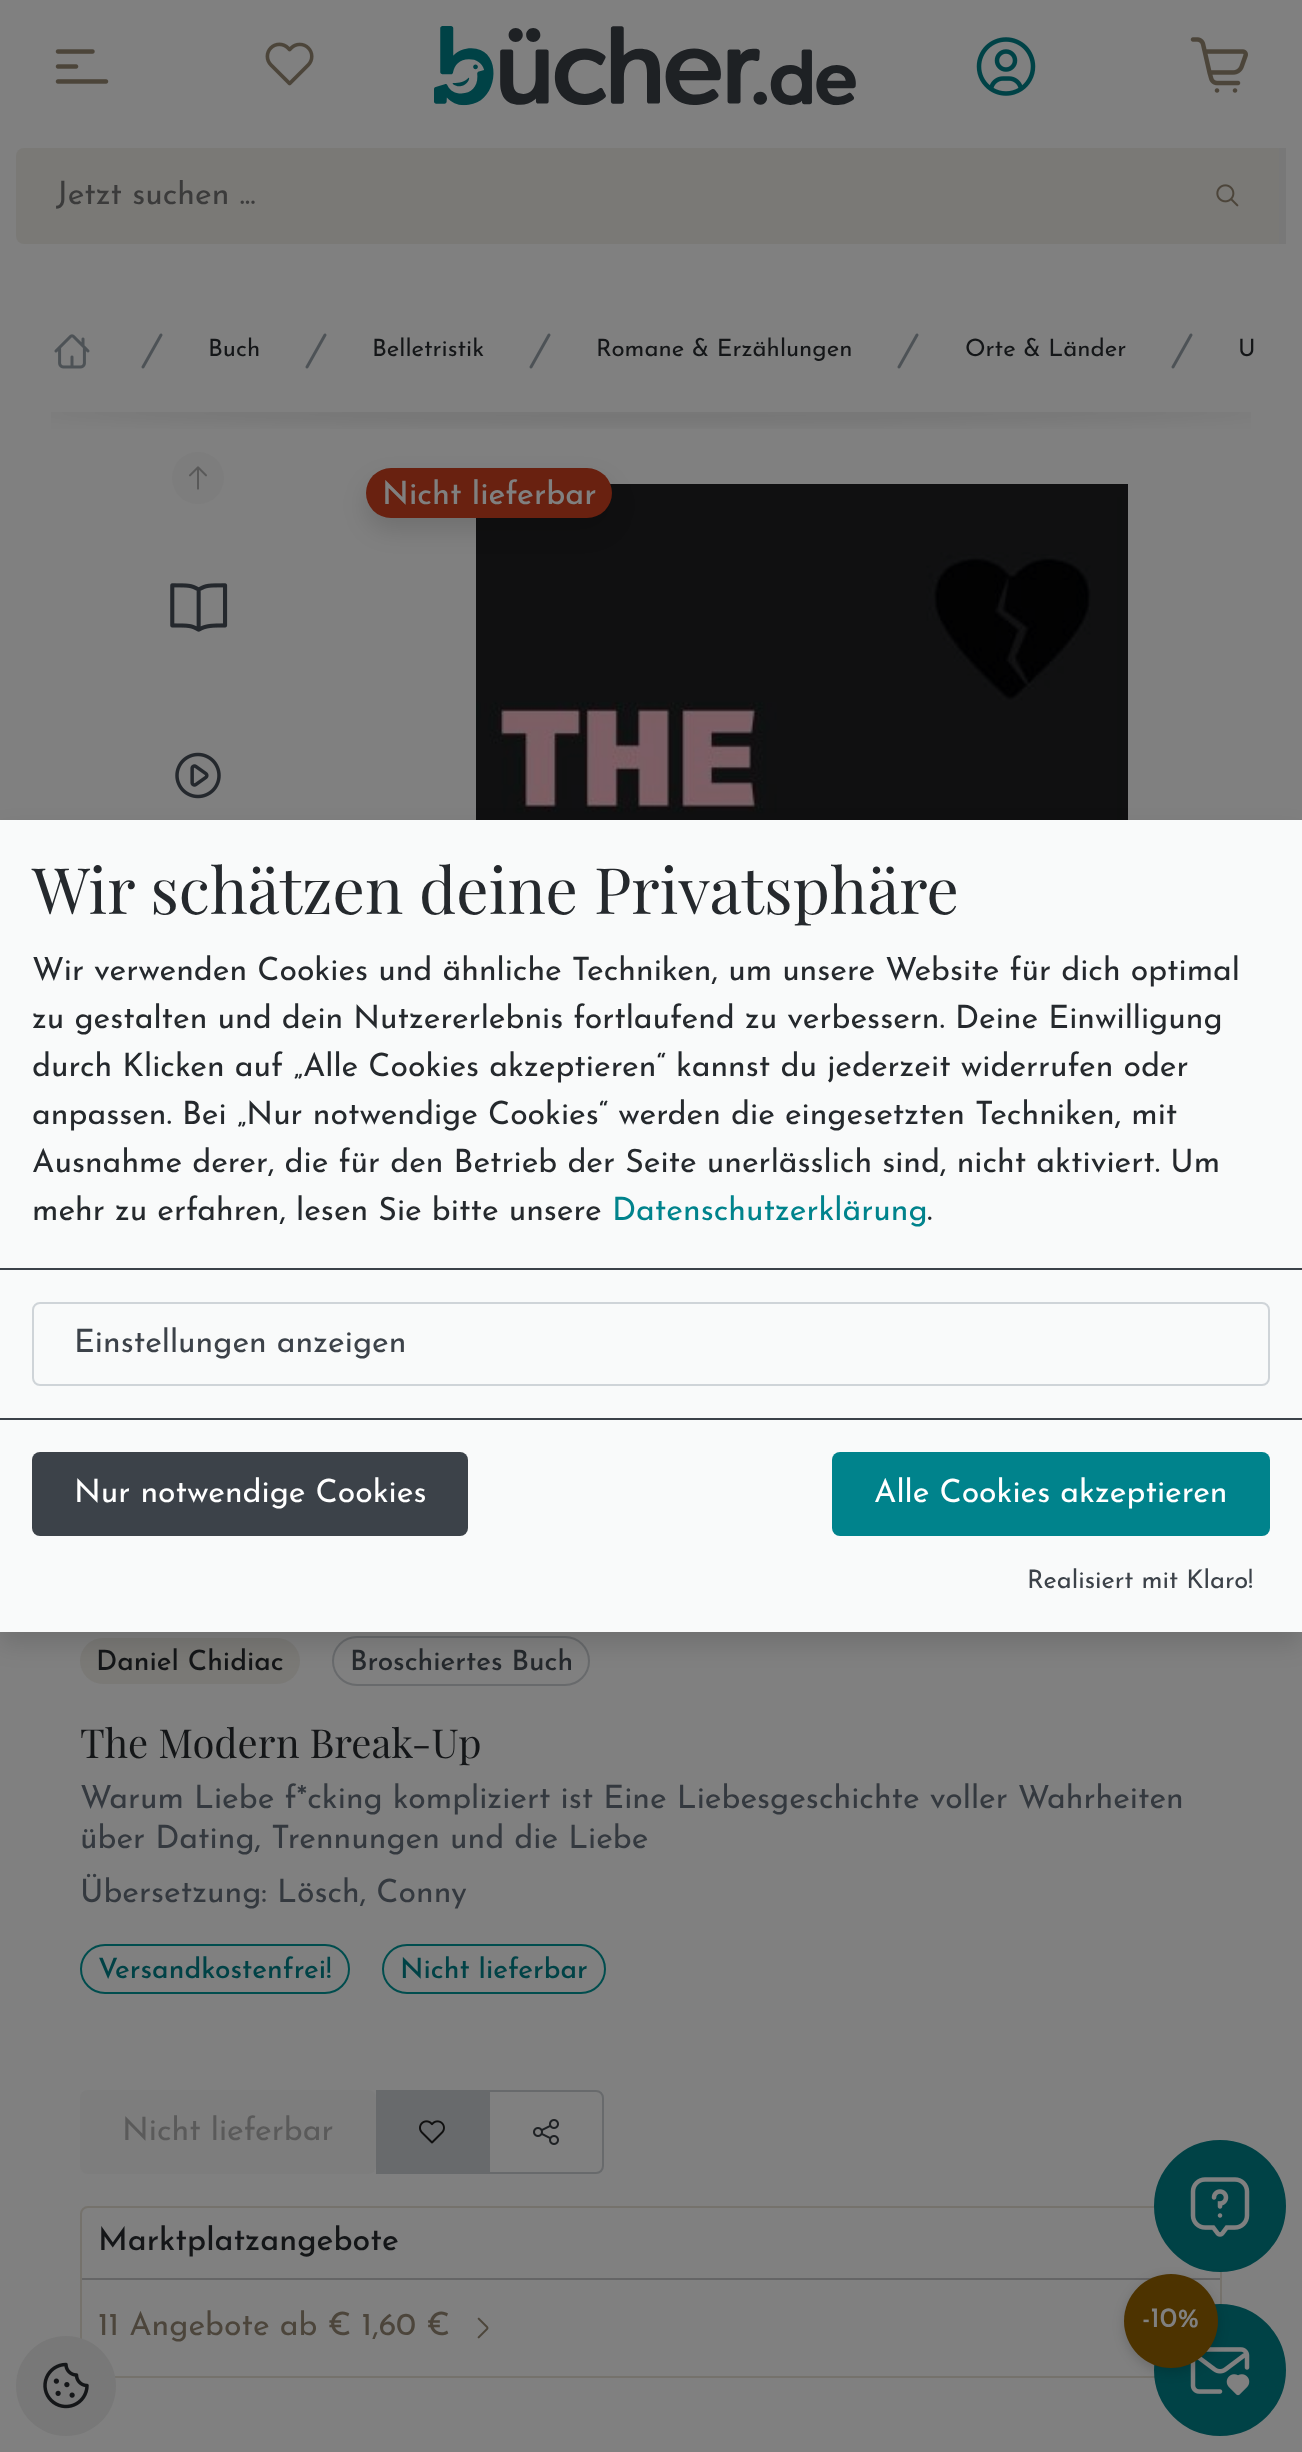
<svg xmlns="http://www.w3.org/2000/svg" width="1302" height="2452">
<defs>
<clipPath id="clip1"><rect x="56" y="180" width="1190" height="32"/></clipPath>
</defs>
<rect width="100%" height="100%" fill="#808080"/>
<image x="55" y="49" width="54" height="35" href="media/1.png"/>
<image x="265" y="42" width="49" height="44" href="media/2.png"/>
<image x="434" y="26" width="422" height="80" href="media/3.png"/>
<image x="976" y="37" width="60" height="59" href="media/4.png"/>
<image x="1190" y="37" width="58" height="56" href="media/5.png"/>
<rect x="16" y="148" width="1270" height="96" rx="8" fill="#7a7976"/>
<g clip-path="url(#clip1)">
<text x="56" y="204" style="font-family:'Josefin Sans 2';font-size:32px;font-weight:100;fill:#3b3b3b">Jetzt suchen ...</text>
</g>
<rect x="1279" y="148" width="7" height="96" fill="#787878"/>
<image x="1216" y="184" width="23" height="23" href="media/6.png"/>
<image x="54" y="334" width="36" height="35" href="media/7.png"/>
<image x="141" y="333" width="22" height="36" href="media/8.png"/>
<text x="208" y="356" style="font-family:'Josefin Sans 2';font-size:24px;font-weight:100;fill:#141618">Buch</text>
<image x="305" y="333" width="22" height="36" href="media/8.png"/>
<text x="372" y="356" style="font-family:'Josefin Sans 2';font-size:24px;font-weight:100;fill:#141618">Belletristik</text>
<image x="529" y="333" width="22" height="36" href="media/8.png"/>
<text x="596" y="356" style="font-family:'Josefin Sans 2';font-size:24px;font-weight:100;fill:#141618">Romane &amp; Erzählungen</text>
<image x="897" y="333" width="22" height="36" href="media/8.png"/>
<text x="965" y="356" style="font-family:'Josefin Sans 2';font-size:24px;font-weight:100;fill:#141618">Orte &amp; Länder</text>
<image x="1171" y="333" width="22" height="36" href="media/8.png"/>
<text x="1238" y="356" style="font-family:'Josefin Sans 2';font-size:24px;font-weight:100;fill:#141618">U</text>
<image x="51" y="412" width="1200" height="17" href="media/9.png"/>
<circle cx="198" cy="478" r="26" fill="#7d7d7d"/>
<image x="189" y="466" width="18" height="24" href="media/10.png"/>
<image x="170" y="583" width="58" height="49" href="media/11.png"/>
<image x="175" y="752" width="46" height="47" href="media/12.png"/>
<image x="476" y="484" width="652" height="336" href="media/13.png"/>
<rect x="366" y="480" width="246" height="50" rx="25" fill="#00000021" filter="blur(12px)"/>
<rect x="366" y="468" width="246" height="50" rx="25" fill="#692110"/>
<text x="382" y="504" style="font-family:Josefin Sans;font-size:32px;font-weight:100;fill:#808080">Nicht lieferbar</text>
<rect x="80" y="1638" width="220" height="46" rx="23" fill="#7a7976"/>
<text x="96" y="1670" style="font-family:Josefin Sans;font-size:28px;font-weight:100;fill:#141618">Daniel Chidiac</text>
<rect x="333" y="1637" width="256" height="48" rx="24" fill="none" stroke="#686a6c" stroke-width="2"/>
<text x="350" y="1670" style="font-family:Josefin Sans;font-size:28px;font-weight:100;fill:#25292d">Broschiertes Buch</text>
<text x="80" y="1758" style="font-family:Playfair Display;font-size:40px;fill:#141618">The Modern Break-Up</text>
<text x="80" y="1808" style="font-family:'Josefin Sans 2';font-size:32px;font-weight:100;fill:#34393f">Warum Liebe f*cking kompliziert ist Eine Liebesgeschichte voller Wahrheiten</text>
<text x="80" y="1848" style="font-family:'Josefin Sans 2';font-size:32px;font-weight:100;fill:#34393f">über Dating, Trennungen und die Liebe</text>
<text x="80" y="1902" style="font-family:'Josefin Sans 2';font-size:32px;font-weight:100;fill:#34393f">Übersetzung: Lösch, Conny</text>
<rect x="81" y="1945" width="268" height="48" rx="24" fill="none" stroke="#004d4e" stroke-width="2"/>
<text x="98" y="1978" style="font-family:Josefin Sans;font-size:28px;font-weight:100;fill:#004246">Versandkostenfrei!</text>
<rect x="383" y="1945" width="222" height="48" rx="24" fill="none" stroke="#004d4e" stroke-width="2"/>
<text x="400" y="1978" style="font-family:Josefin Sans;font-size:28px;font-weight:100;fill:#004246">Nicht lieferbar</text>
<rect x="80" y="2090" width="296" height="84" rx="8" fill="#7d7d7d"/>
<text x="122" y="2140" style="font-family:'Josefin Sans 2';font-size:32px;font-weight:100;fill:#5a5a5a">Nicht lieferbar</text>
<rect x="376" y="2090" width="112" height="84" fill="#686a6c"/>
<image x="419" y="2120" width="26" height="24" href="media/14.png"/>
<path d="M489 2091h107c4 0 7 3 7 7v68c0 4-3 7-7 7h-107z" fill="none" stroke="#686a6c" stroke-width="2"/>
<image x="533" y="2119" width="26" height="26" href="media/15.png"/>
<rect x="81" y="2207" width="1140" height="170" rx="7" fill="none" stroke="#75726c" stroke-width="2"/>
<text x="98" y="2250" style="font-family:Josefin Sans;font-size:32px;font-weight:100;fill:#141618">Marktplatzangebote</text>
<rect x="82" y="2278" width="1138" height="2" fill="#656566"/>
<text x="98" y="2335" style="font-family:'Josefin Sans 2';font-size:32px;font-weight:100;fill:#4c453b">11 Angebote ab € 1,60 €</text>
<image x="477" y="2317" width="12" height="22" href="media/16.png"/>
<rect y="832" width="1302" height="812" fill="#00000021" filter="blur(12px)"/>
<rect y="820" width="1302" height="812" fill="#f9fafa"/>
<rect y="1268" width="1302" height="2" fill="#3c4249"/>
<text x="32" y="914" style="font-family:Playfair Display;font-size:64px;fill:#25292d">Wir schätzen deine Privatsphäre</text>
<text x="32" y="980" style="font-family:'Josefin Sans 2';font-size:32px;font-weight:100;fill:#25292d">Wir verwenden Cookies und ähnliche Techniken, um unsere Website für dich optimal</text>
<text x="32" y="1028" style="font-family:'Josefin Sans 2';font-size:32px;font-weight:100;fill:#25292d">zu gestalten und dein Nutzererlebnis fortlaufend zu verbessern. Deine Einwilligung</text>
<text x="32" y="1076" style="font-family:'Josefin Sans 2';font-size:32px;font-weight:100;fill:#25292d">durch Klicken auf „Alle Cookies akzeptieren“ kannst du jederzeit widerrufen oder</text>
<text x="32" y="1124" style="font-family:'Josefin Sans 2';font-size:32px;font-weight:100;fill:#25292d">anpassen. Bei „Nur notwendige Cookies“ werden die eingesetzten Techniken, mit</text>
<text x="32" y="1172" style="font-family:'Josefin Sans 2';font-size:32px;font-weight:100;fill:#25292d">Ausnahme derer, die für den Betrieb der Seite unerlässlich sind, nicht aktiviert. Um</text>
<text x="32" y="1220" style="font-family:'Josefin Sans 2';font-size:32px;font-weight:100;fill:#25292d">mehr zu erfahren, lesen Sie bitte unsere</text>
<text x="612" y="1220" style="font-family:'Josefin Sans 2';font-size:32px;font-weight:100;fill:#00838c">Datenschutzerklärung</text>
<text x="927" y="1220" style="font-family:'Josefin Sans 2';font-size:32px;font-weight:100;fill:#25292d">.</text>
<rect x="33" y="1303" width="1236" height="82" rx="7" fill="none" stroke="#cfd4d8" stroke-width="2"/>
<text x="74" y="1352" style="font-family:'Josefin Sans 2';font-size:32px;font-weight:100;fill:#3c4249">Einstellungen anzeigen</text>
<rect y="1418" width="1302" height="2" fill="#3c4249"/>
<rect x="32" y="1452" width="436" height="84" rx="8" fill="#3c4249"/>
<text x="74" y="1502" style="font-family:'Josefin Sans 2';font-size:32px;font-weight:100;fill:#fff">Nur notwendige Cookies</text>
<rect x="832" y="1452" width="438" height="84" rx="8" fill="#00838c"/>
<text x="874" y="1502" style="font-family:'Josefin Sans 2';font-size:32px;font-weight:100;fill:#fff">Alle Cookies akzeptieren</text>
<text x="1027" y="1588" style="font-family:'Josefin Sans 2';font-size:25.5px;font-weight:100;fill:#3c4249">Realisiert mit Klaro!</text>
<circle cx="1220" cy="2206" r="65" fill="#004246" stroke="#004246" stroke-width="2"/>
<image x="1190" y="2177" width="60" height="60" href="media/17.png"/>
<circle cx="1220" cy="2370" r="65" fill="#004246" stroke="#004246" stroke-width="2"/>
<image x="1190" y="2347" width="60" height="49" href="media/18.png"/>
<rect x="1124" y="2278" width="94" height="94" rx="47" fill="#00000029" filter="blur(6px)"/>
<circle cx="1171" cy="2321" r="47" fill="#4d3300"/>
<text x="1142" y="2327" style="font-family:Josefin Sans;font-size:28px;font-weight:100;fill:#808080">-10%</text>
<circle cx="66" cy="2386" r="50" fill="#787878"/>
<image x="43" y="2362" width="46" height="47" href="media/19.png"/>
</svg>
